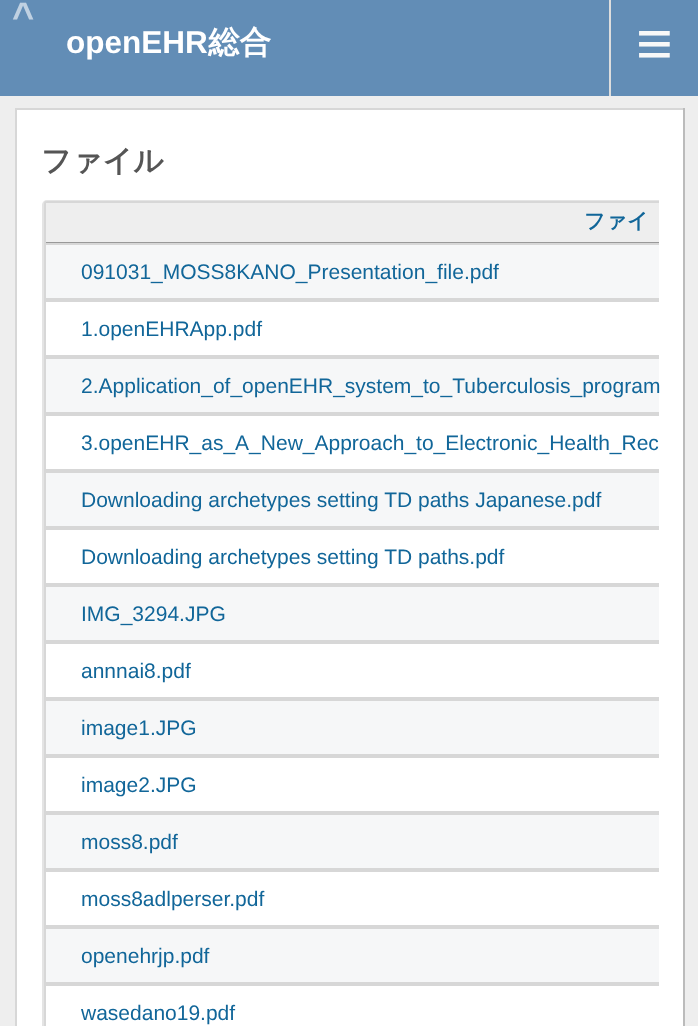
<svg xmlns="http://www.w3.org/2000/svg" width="698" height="1026">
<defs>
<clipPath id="clip1"><rect x="41" y="198" width="618" height="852"/></clipPath>
<clipPath id="clip2"><rect x="44" y="201" width="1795" height="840" rx="3"/></clipPath>
</defs>
<rect width="100%" height="100%" fill="#eee"/>
<rect width="698" height="96" fill="#628db6"/>
<text x="12" y="29" style="font-family:Liberation Sans;font-size:38px;font-weight:bold;letter-spacing:6px;fill:#c0d1e2">^</text>
<text x="66" y="53" style="font-family:Liberation Sans;font-size:31.5px;font-weight:bold;fill:#fff">openEHR</text>
<text x="208" y="53" style="font-family:WenQuanYi Zen Hei;font-size:31.5px;font-weight:bold;fill:#fff">総合</text>
<rect x="609" width="2" height="96" fill="#ddd"/>
<text x="636" y="65" style="font-family:Liberation Sans;font-size:63px;fill:#f8f8f8">≡</text>
<rect x="17" y="110" width="666" height="916" fill="#fff"/>
<rect x="15" y="108" width="669" height="2" fill="#d7d7d7"/>
<rect x="683" y="108" width="2" height="918" fill="#bbb"/>
<rect x="15" y="108" width="2" height="918" fill="#d7d7d7"/>
<text x="41" y="171" style="font-family:WenQuanYi Zen Hei;font-size:30px;font-weight:bold;fill:#555">ファイル</text>
<g clip-path="url(#clip1)">
<rect x="43" y="201" width="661" height="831" rx="4" fill="none" stroke="#e4e4e4" stroke-width="2"/>
</g>
<path d="M47 201h612v42h-615v-39c0-1.5 1.5-3 3-3z" fill="#eee"/>
<g clip-path="url(#clip2)">
<rect x="44" y="201" width="615" height="2" fill="#d7d7d7"/>
</g>
<rect x="44" y="242" width="615" height="1" fill="#999"/>
<g clip-path="url(#clip2)">
<rect x="44" y="201" width="2" height="42" fill="#d7d7d7"/>
</g>
<text x="584" y="228" style="font-family:WenQuanYi Zen Hei;font-size:21px;font-weight:bold;fill:#169">ファイ</text>
<rect x="46" y="245" width="613" height="53" fill="#f6f7f8"/>
<g clip-path="url(#clip1)">
<rect x="45" y="244" width="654" height="55" fill="none" stroke="#d7d7d7" stroke-width="2"/>
</g>
<text x="81" y="279" style="font-family:Liberation Sans;font-size:21px;fill:#169">091031_MOSS8KANO_Presentation_file.pdf</text>
<g clip-path="url(#clip1)">
<rect x="45" y="301" width="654" height="55" fill="none" stroke="#d7d7d7" stroke-width="2"/>
</g>
<text x="81" y="336" style="font-family:Liberation Sans;font-size:21px;fill:#169">1.openEHRApp.pdf</text>
<rect x="46" y="359" width="613" height="53" fill="#f6f7f8"/>
<g clip-path="url(#clip1)">
<rect x="45" y="358" width="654" height="55" fill="none" stroke="#d7d7d7" stroke-width="2"/>
</g>
<text x="81" y="393" style="font-family:Liberation Sans;font-size:21px;fill:#169">2.Application_of_openEHR_system_to_Tuberculosis_program</text>
<g clip-path="url(#clip1)">
<rect x="45" y="415" width="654" height="55" fill="none" stroke="#d7d7d7" stroke-width="2"/>
</g>
<text x="81" y="450" style="font-family:Liberation Sans;font-size:21px;fill:#169">3.openEHR_as_A_New_Approach_to_Electronic_Health_Rec</text>
<rect x="46" y="473" width="613" height="53" fill="#f6f7f8"/>
<g clip-path="url(#clip1)">
<rect x="45" y="472" width="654" height="55" fill="none" stroke="#d7d7d7" stroke-width="2"/>
</g>
<text x="81" y="507" style="font-family:Liberation Sans;font-size:21px;fill:#169">Downloading archetypes setting TD paths Japanese.pdf</text>
<g clip-path="url(#clip1)">
<rect x="45" y="529" width="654" height="55" fill="none" stroke="#d7d7d7" stroke-width="2"/>
</g>
<text x="81" y="564" style="font-family:Liberation Sans;font-size:21px;fill:#169">Downloading archetypes setting TD paths.pdf</text>
<rect x="46" y="587" width="613" height="53" fill="#f6f7f8"/>
<g clip-path="url(#clip1)">
<rect x="45" y="586" width="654" height="55" fill="none" stroke="#d7d7d7" stroke-width="2"/>
</g>
<text x="81" y="621" style="font-family:Liberation Sans;font-size:21px;fill:#169">IMG_3294.JPG</text>
<g clip-path="url(#clip1)">
<rect x="45" y="643" width="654" height="55" fill="none" stroke="#d7d7d7" stroke-width="2"/>
</g>
<text x="81" y="678" style="font-family:Liberation Sans;font-size:21px;fill:#169">annnai8.pdf</text>
<rect x="46" y="701" width="613" height="53" fill="#f6f7f8"/>
<g clip-path="url(#clip1)">
<rect x="45" y="700" width="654" height="55" fill="none" stroke="#d7d7d7" stroke-width="2"/>
</g>
<text x="81" y="735" style="font-family:Liberation Sans;font-size:21px;fill:#169">image1.JPG</text>
<g clip-path="url(#clip1)">
<rect x="45" y="757" width="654" height="55" fill="none" stroke="#d7d7d7" stroke-width="2"/>
</g>
<text x="81" y="792" style="font-family:Liberation Sans;font-size:21px;fill:#169">image2.JPG</text>
<rect x="46" y="815" width="613" height="53" fill="#f6f7f8"/>
<g clip-path="url(#clip1)">
<rect x="45" y="814" width="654" height="55" fill="none" stroke="#d7d7d7" stroke-width="2"/>
</g>
<text x="81" y="849" style="font-family:Liberation Sans;font-size:21px;fill:#169">moss8.pdf</text>
<g clip-path="url(#clip1)">
<rect x="45" y="871" width="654" height="55" fill="none" stroke="#d7d7d7" stroke-width="2"/>
</g>
<text x="81" y="906" style="font-family:Liberation Sans;font-size:21px;fill:#169">moss8adlperser.pdf</text>
<rect x="46" y="929" width="613" height="53" fill="#f6f7f8"/>
<g clip-path="url(#clip1)">
<rect x="45" y="928" width="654" height="55" fill="none" stroke="#d7d7d7" stroke-width="2"/>
</g>
<text x="81" y="963" style="font-family:Liberation Sans;font-size:21px;fill:#169">openehrjp.pdf</text>
<g clip-path="url(#clip1)">
<path d="M44 984v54c0 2 1 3 3 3h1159v-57zm2 2v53h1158v-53z" fill="#d7d7d7" fill-rule="evenodd"/>
</g>
<text x="81" y="1020" style="font-family:Liberation Sans;font-size:21px;fill:#169">wasedano19.pdf</text>
</svg>
